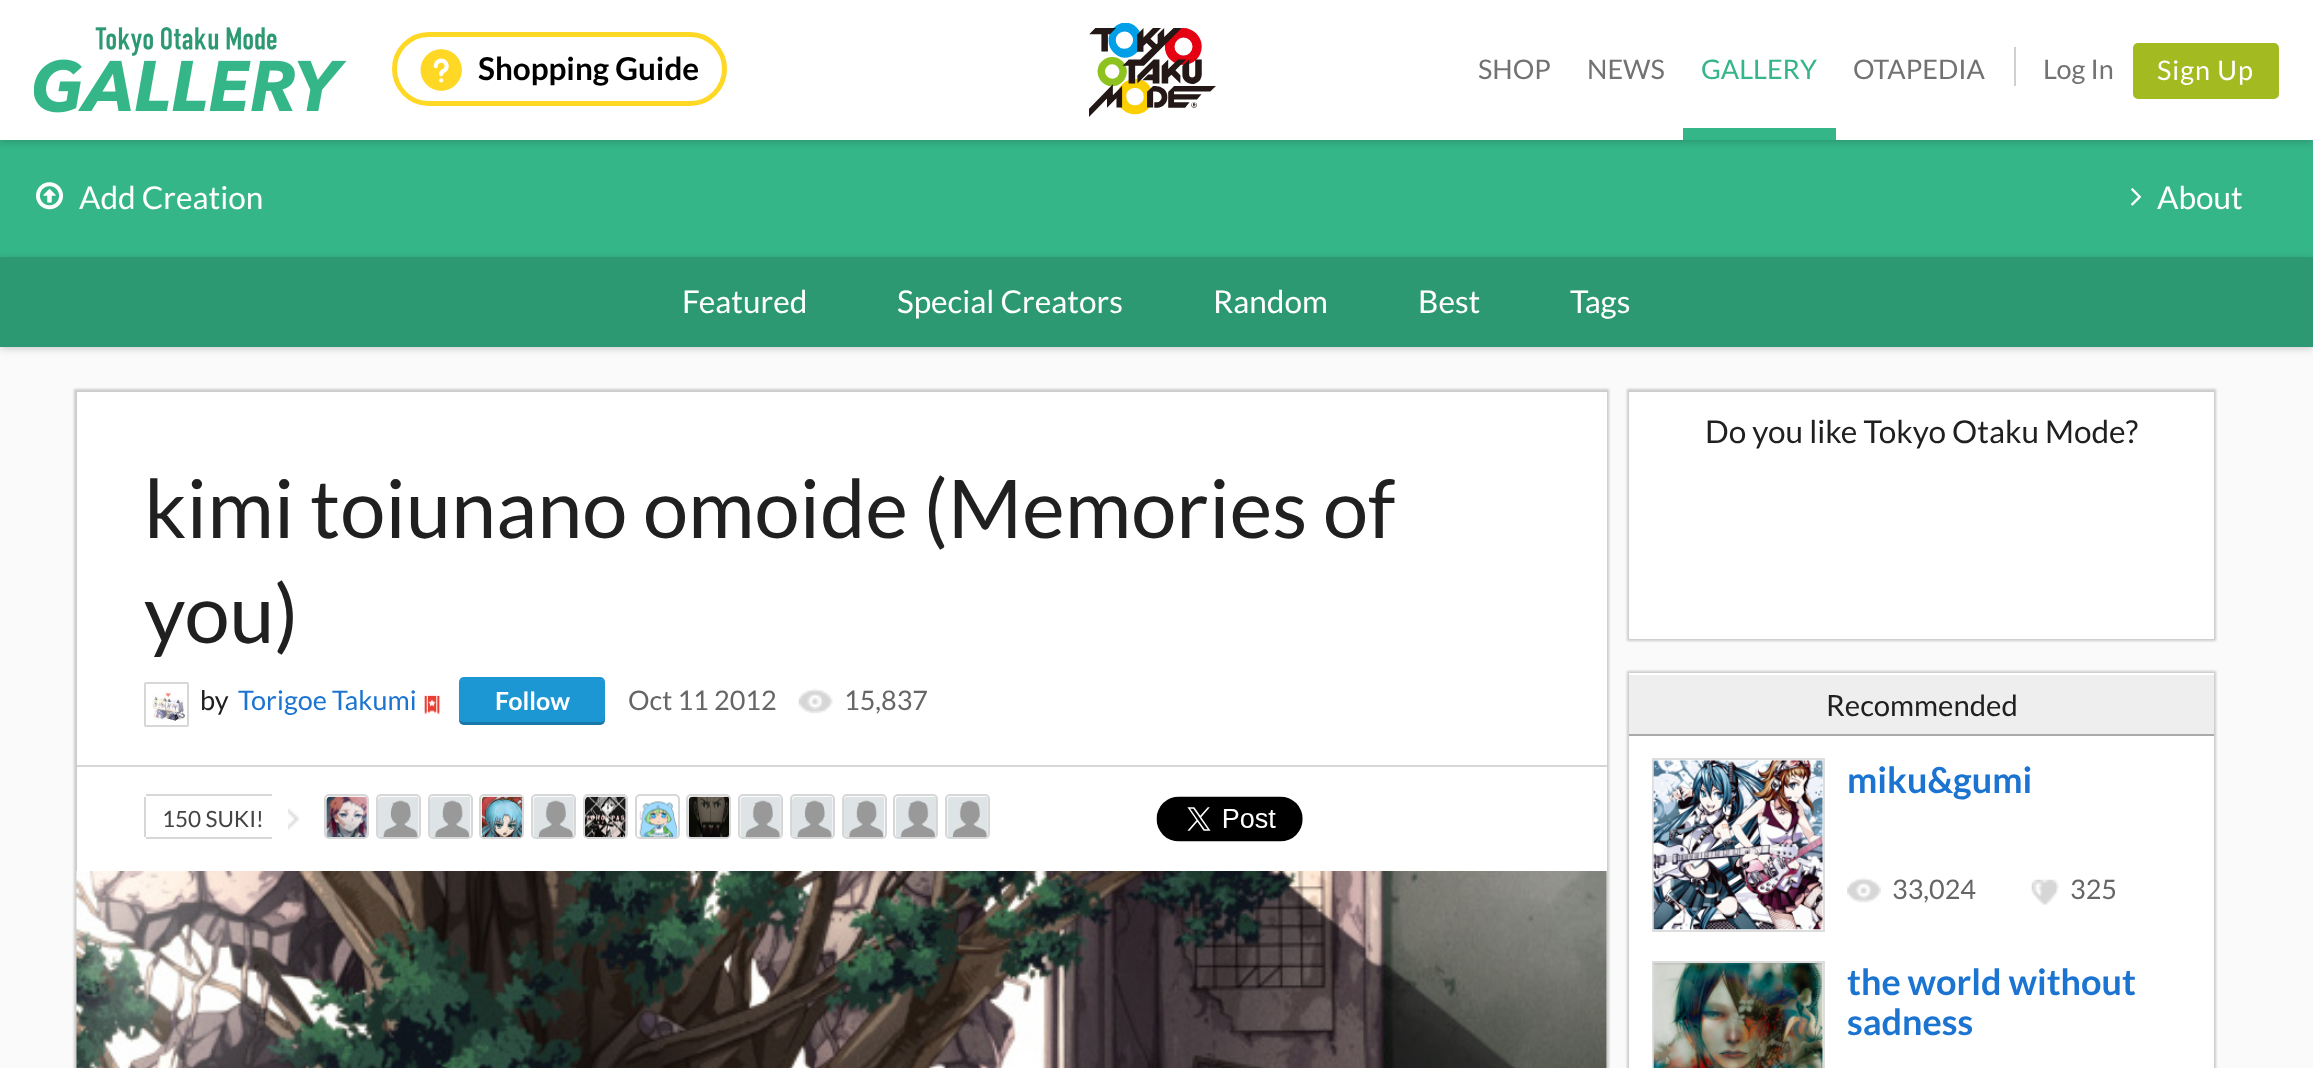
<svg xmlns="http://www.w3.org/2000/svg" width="2313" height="1068">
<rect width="100%" height="100%" fill="#fafafa"/>
<rect y="140" width="2313" height="117" fill="#35b689"/>
<rect y="2" width="2313" height="140" fill="#0000002e" filter="blur(3.5px)"/>
<rect width="2313" height="140" fill="#fff"/>
<image x="34" y="27" width="313" height="86" href="media/1.png"/>
<rect x="394.5" y="34.5" width="330" height="69" rx="34.5" fill="none" stroke="#ffd826" stroke-width="5"/>
<image x="420" y="49" width="42" height="42" href="media/2.png"/>
<text x="478" y="80" style="font-family:Lato;font-size:31.5px;font-weight:bold;fill:#000">Shopping Guide</text>
<image x="1089" y="23" width="127" height="94" href="media/3.png"/>
<text x="1478" y="79" style="font-family:Lato;font-size:27px;fill:#727272">SHOP</text>
<text x="1587" y="79" style="font-family:Lato;font-size:27px;fill:#727272">NEWS</text>
<rect x="1683" y="128" width="153" height="12" fill="#35b689"/>
<text x="1701" y="79" style="font-family:Lato;font-size:27px;fill:#35b689">GALLERY</text>
<text x="1853" y="79" style="font-family:Lato;font-size:27px;fill:#727272">OTAPEDIA</text>
<rect x="2014" y="47" width="2" height="39" fill="#d0d0d0"/>
<text x="2043" y="79" style="font-family:Lato;font-size:27px;fill:#727272">Log In</text>
<rect x="2134" y="44" width="144" height="54" rx="4" fill="#a3ba20" stroke="#a3ba20" stroke-width="2"/>
<text x="2157" y="80" style="font-family:Lato;font-size:27px;letter-spacing:1px;fill:#fff">Sign Up</text>
<image x="36" y="182" width="27" height="28" href="media/4.png"/>
<text x="79" y="209" style="font-family:Lato;font-size:31.5px;fill:#fff">Add Creation</text>
<image x="2131" y="188" width="11" height="18" href="media/5.png"/>
<text x="2157" y="209" style="font-family:Lato;font-size:31.5px;fill:#fff">About</text>
<rect y="259" width="2313" height="90" fill="#0000002e" filter="blur(3.5px)"/>
<rect y="257" width="2313" height="90" fill="#2c9973"/>
<text x="682" y="313" style="font-family:Lato;font-size:31.5px;fill:#fff">Featured</text>
<text x="897" y="313" style="font-family:Lato;font-size:31.5px;fill:#fff">Special Creators</text>
<text x="1213" y="313" style="font-family:Lato;font-size:31.5px;fill:#fff">Random</text>
<text x="1418" y="313" style="font-family:Lato;font-size:31.5px;fill:#fff">Best</text>
<text x="1570" y="313" style="font-family:Lato;font-size:31.5px;fill:#fff">Tags</text>
<rect x="74" y="389" width="1535" height="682" fill="#ccc" filter="blur(1px)"/>
<rect x="77" y="392" width="1530" height="373" fill="#fff"/>
<text x="144" y="538" style="font-family:Lato;font-size:81px;fill:#202020">kimi toiunano omoide (Memories of</text>
<text x="144" y="643" style="font-family:Lato;font-size:81px;fill:#202020">you)</text>
<rect x="77" y="765" width="1530" height="2" fill="#d7d7d7"/>
<rect x="145" y="683" width="43" height="43" rx="1" fill="none" stroke="#d7d7d7" stroke-width="2"/>
<image x="152" y="691" width="34" height="31" href="media/6.png"/>
<text x="200" y="710" style="font-family:Lato;font-size:27px;fill:#202020">by</text>
<text x="238" y="710" style="font-family:Lato;font-size:27px;fill:#1c74d1">Torigoe Takumi</text>
<image x="424" y="695" width="16" height="20" href="media/7.png"/>
<rect x="459" y="677" width="146" height="48" rx="5" fill="#1d96d4"/>
<path d="M459 718v2c0 3 2 5 5 5h136c3 0 5-2 5-5v-2l-1 3l-3 1h-137c-2 0-5-1-5-4z" fill="#00000033"/>
<text x="495" y="710" style="font-family:Lato;font-size:25px;font-weight:bold;fill:#fff">Follow</text>
<text x="628" y="710" style="font-family:Lato;font-size:27px;fill:#666">Oct 11 2012</text>
<image x="798" y="688" width="35" height="26" href="media/8.png"/>
<text x="844" y="710" style="font-family:Lato;font-size:27px;fill:#666">15,837</text>
<rect x="1606" y="871" width="1" height="197" fill="#ddd"/>
<image x="76" y="870" width="1531" height="198" href="media/22.png"/>
<rect x="77" y="767" width="1530" height="104" fill="#fff"/>
<rect x="146" y="794" width="126" height="2" fill="#d7d7d7"/>
<rect x="146" y="837" width="126" height="2" fill="#d7d7d7"/>
<rect x="144" y="797" width="2" height="40" fill="#d7d7d7"/>
<text x="162" y="827" style="font-family:Lato;font-size:22.5px;fill:#444">150 SUKI!</text>
<image x="288" y="807" width="12" height="24" href="media/9.png"/>
<rect x="325" y="795" width="43" height="43" rx="4" fill="none" stroke="#d7d7d7" stroke-width="2"/>
<image x="326" y="796" width="41" height="41" href="media/10.png"/>
<rect x="377" y="795" width="43" height="43" rx="4" fill="none" stroke="#d7d7d7" stroke-width="2"/>
<image x="378" y="796" width="41" height="41" href="media/11.png"/>
<rect x="429" y="795" width="43" height="43" rx="4" fill="none" stroke="#d7d7d7" stroke-width="2"/>
<image x="430" y="796" width="41" height="41" href="media/12.png"/>
<rect x="480" y="795" width="43" height="43" rx="4" fill="none" stroke="#d7d7d7" stroke-width="2"/>
<image x="481" y="796" width="41" height="41" href="media/13.png"/>
<rect x="532" y="795" width="43" height="43" rx="4" fill="none" stroke="#d7d7d7" stroke-width="2"/>
<image x="533" y="796" width="41" height="41" href="media/14.png"/>
<rect x="584" y="795" width="43" height="43" rx="4" fill="none" stroke="#d7d7d7" stroke-width="2"/>
<image x="585" y="796" width="41" height="41" href="media/15.png"/>
<rect x="636" y="795" width="43" height="43" rx="4" fill="none" stroke="#d7d7d7" stroke-width="2"/>
<image x="637" y="801" width="41" height="36" href="media/16.png"/>
<rect x="687" y="795" width="43" height="43" rx="4" fill="none" stroke="#d7d7d7" stroke-width="2"/>
<image x="688" y="796" width="41" height="41" href="media/17.png"/>
<rect x="739" y="795" width="43" height="43" rx="4" fill="none" stroke="#d7d7d7" stroke-width="2"/>
<image x="740" y="796" width="41" height="41" href="media/14.png"/>
<rect x="791" y="795" width="43" height="43" rx="4" fill="none" stroke="#d7d7d7" stroke-width="2"/>
<image x="792" y="796" width="41" height="41" href="media/18.png"/>
<rect x="843" y="795" width="43" height="43" rx="4" fill="none" stroke="#d7d7d7" stroke-width="2"/>
<image x="844" y="796" width="41" height="41" href="media/19.png"/>
<rect x="894" y="795" width="43" height="43" rx="4" fill="none" stroke="#d7d7d7" stroke-width="2"/>
<image x="895" y="796" width="41" height="41" href="media/20.png"/>
<rect x="946" y="795" width="43" height="43" rx="4" fill="none" stroke="#d7d7d7" stroke-width="2"/>
<image x="947" y="796" width="41" height="41" href="media/14.png"/>
<image x="1156" y="796" width="147" height="46" href="media/21.png"/>
<rect x="1627" y="389" width="589" height="252" fill="#ccc" filter="blur(1px)"/>
<rect x="1629" y="392" width="585" height="247" fill="#fff"/>
<text x="1705" y="443" style="font-family:Lato;font-size:31.5px;fill:#202020">Do you like Tokyo Otaku Mode?</text>
<rect x="1627" y="671" width="589" height="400" fill="#ccc" filter="blur(1px)"/>
<rect x="1629" y="736" width="585" height="332" fill="#fff"/>
<rect x="1629" y="675" width="585" height="59" fill="#eee"/>
<rect x="1629" y="673" width="585" height="2" fill="#fff"/>
<rect x="1629" y="734" width="585" height="2" fill="#aaa"/>
<text x="1826" y="716" style="font-family:Lato;font-size:29.25px;fill:#202020">Recommended</text>
<rect x="1653" y="759" width="171" height="172" fill="none" stroke="#ddd" stroke-width="2"/>
<image x="1653" y="760" width="170" height="170" href="media/23.png"/>
<text x="1847" y="793" style="font-family:Lato;font-size:36px;font-weight:bold;fill:#1c74d1">miku&amp;gumi</text>
<image x="1847" y="877" width="34" height="26" href="media/24.png"/>
<text x="1892" y="899" style="font-family:Lato;font-size:27px;fill:#666">33,024</text>
<image x="2031" y="879" width="28" height="26" href="media/25.png"/>
<text x="2070" y="899" style="font-family:Lato;font-size:27px;fill:#666">325</text>
<rect x="1653" y="962" width="171" height="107" fill="none" stroke="#ddd" stroke-width="2"/>
<image x="1653" y="963" width="170" height="105" href="media/26.png"/>
<text x="1847" y="995" style="font-family:Lato;font-size:36px;font-weight:bold;fill:#1c74d1">the world without</text>
<text x="1847" y="1035" style="font-family:Lato;font-size:36px;font-weight:bold;fill:#1c74d1">sadness</text>
</svg>
